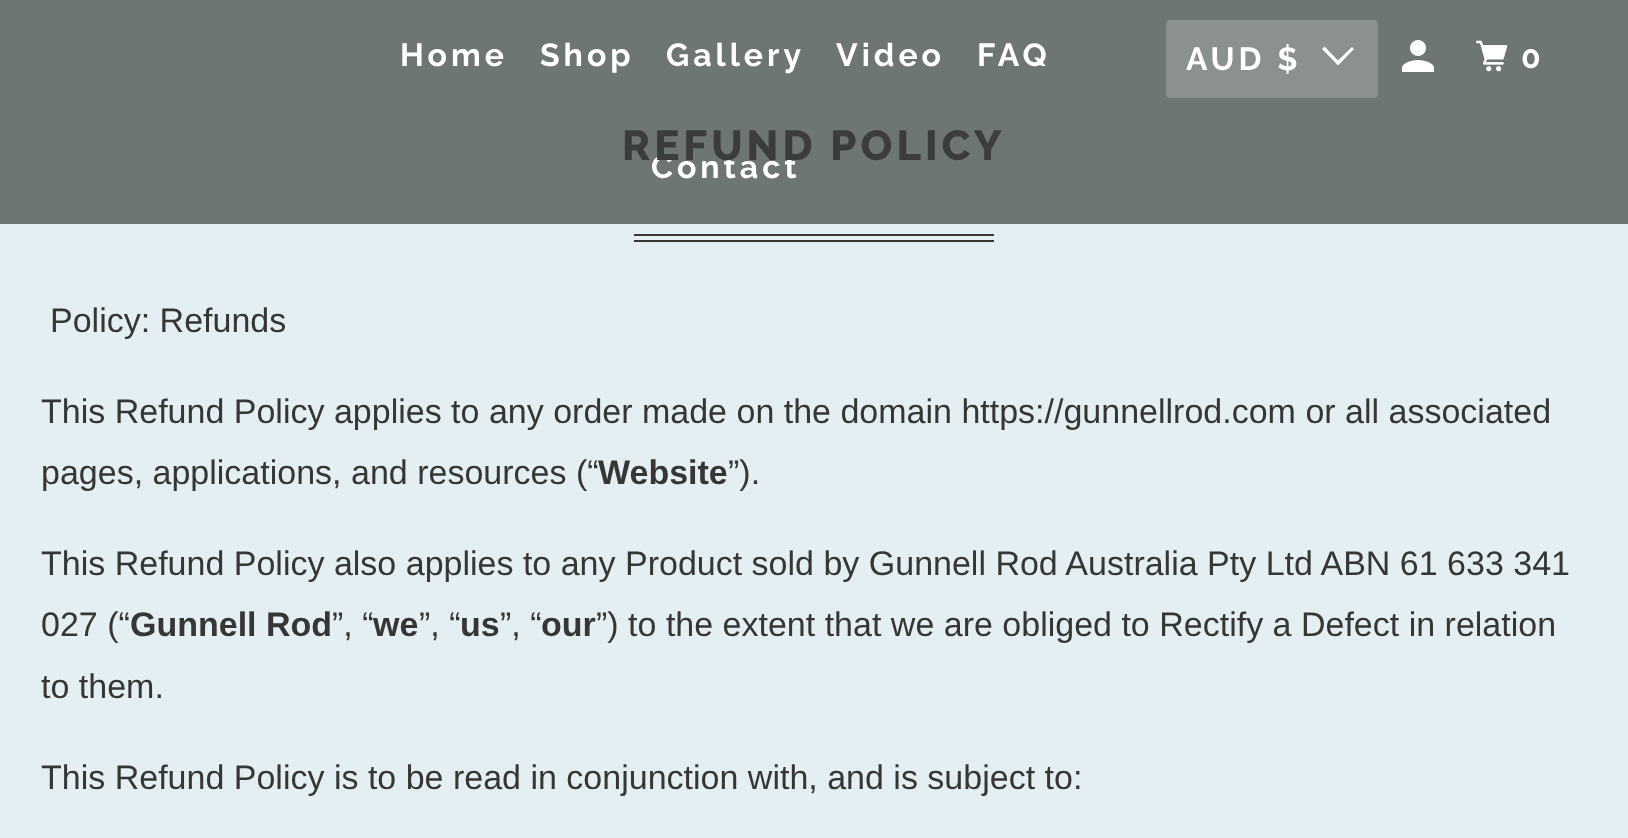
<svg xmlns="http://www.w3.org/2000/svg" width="1628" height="838">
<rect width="100%" height="100%" fill="#e3eff2"/>
<rect width="1628" height="224" fill="#6e7575"/>
<text x="400" y="66" style="font-family:Raleway;font-size:32px;font-weight:bold;letter-spacing:4px;fill:#fff">Home</text>
<text x="540" y="66" style="font-family:Raleway;font-size:32px;font-weight:bold;letter-spacing:4px;fill:#fff">Shop</text>
<text x="666" y="66" style="font-family:Raleway;font-size:32px;font-weight:bold;letter-spacing:4px;fill:#fff">Gallery</text>
<text x="836" y="66" style="font-family:Raleway;font-size:32px;font-weight:bold;letter-spacing:4px;fill:#fff">Video</text>
<text x="977" y="66" style="font-family:Raleway;font-size:32px;font-weight:bold;letter-spacing:4px;fill:#fff">FAQ</text>
<text x="651" y="178" style="font-family:Raleway;font-size:32px;font-weight:bold;letter-spacing:4px;fill:#fff">Contact</text>
<rect x="1166" y="20" width="212" height="78" rx="4" fill="#8b9090"/>
<text x="1186" y="70" style="font-family:Raleway;font-size:32px;font-weight:bold;letter-spacing:4px;fill:#fff">AUD $</text>
<path d="M1330 57l-8-8l2.5-2.5l13.5 14l14-13.5l2 2l-16 16.5z" fill="#fff"/>
<image x="1402" y="40" width="32" height="32" href="media/1.png"/>
<image x="1476" y="40" width="32" height="32" href="media/2.png"/>
<text x="1521" y="68" style="font-family:Raleway;font-size:32px;font-weight:bold;letter-spacing:4px;fill:#fff">0</text>
<text x="622" y="160" style="font-family:Raleway;font-size:42px;font-weight:800;letter-spacing:4px;fill:#3a3d3c">REFUND POLICY</text>
<rect x="634" y="234" width="360" height="2" fill="#363636"/>
<rect x="634" y="240" width="360" height="2" fill="#363636"/>
<text x="50" y="332" style="font-family:Liberation Sans;font-size:34px;fill:#363636">Policy: Refunds</text>
<text x="41" y="423" style="font-family:Liberation Sans;font-size:34px;fill:#363636">This Refund Policy applies to any order made on the domain https://gunnellrod.com or all associated</text>
<text x="41" y="484" style="font-family:Liberation Sans;font-size:34px;fill:#363636">pages, applications, and resources (“</text>
<text x="598" y="484" style="font-family:Liberation Sans;font-size:34px;font-weight:bold;fill:#363636">Website</text>
<text x="728" y="484" style="font-family:Liberation Sans;font-size:34px;fill:#363636">”).</text>
<text x="41" y="575" style="font-family:Liberation Sans;font-size:34px;fill:#363636">This Refund Policy also applies to any Product sold by Gunnell Rod Australia Pty Ltd ABN 61 633 341</text>
<text x="41" y="636" style="font-family:Liberation Sans;font-size:34px;fill:#363636">027 (“</text>
<text x="130" y="636" style="font-family:Liberation Sans;font-size:34px;font-weight:bold;fill:#363636">Gunnell Rod</text>
<text x="332" y="636" style="font-family:Liberation Sans;font-size:34px;fill:#363636">”, “</text>
<text x="373" y="636" style="font-family:Liberation Sans;font-size:34px;font-weight:bold;fill:#363636">we</text>
<text x="419" y="636" style="font-family:Liberation Sans;font-size:34px;fill:#363636">”, “</text>
<text x="460" y="636" style="font-family:Liberation Sans;font-size:34px;font-weight:bold;fill:#363636">us</text>
<text x="500" y="636" style="font-family:Liberation Sans;font-size:34px;fill:#363636">”, “</text>
<text x="541" y="636" style="font-family:Liberation Sans;font-size:34px;font-weight:bold;fill:#363636">our</text>
<text x="596" y="636" style="font-family:Liberation Sans;font-size:34px;fill:#363636">”) to the extent that we are obliged to Rectify a Defect in relation</text>
<text x="41" y="698" style="font-family:Liberation Sans;font-size:34px;fill:#363636">to them.</text>
<text x="41" y="789" style="font-family:Liberation Sans;font-size:34px;fill:#363636">This Refund Policy is to be read in conjunction with, and is subject to:</text>
</svg>
